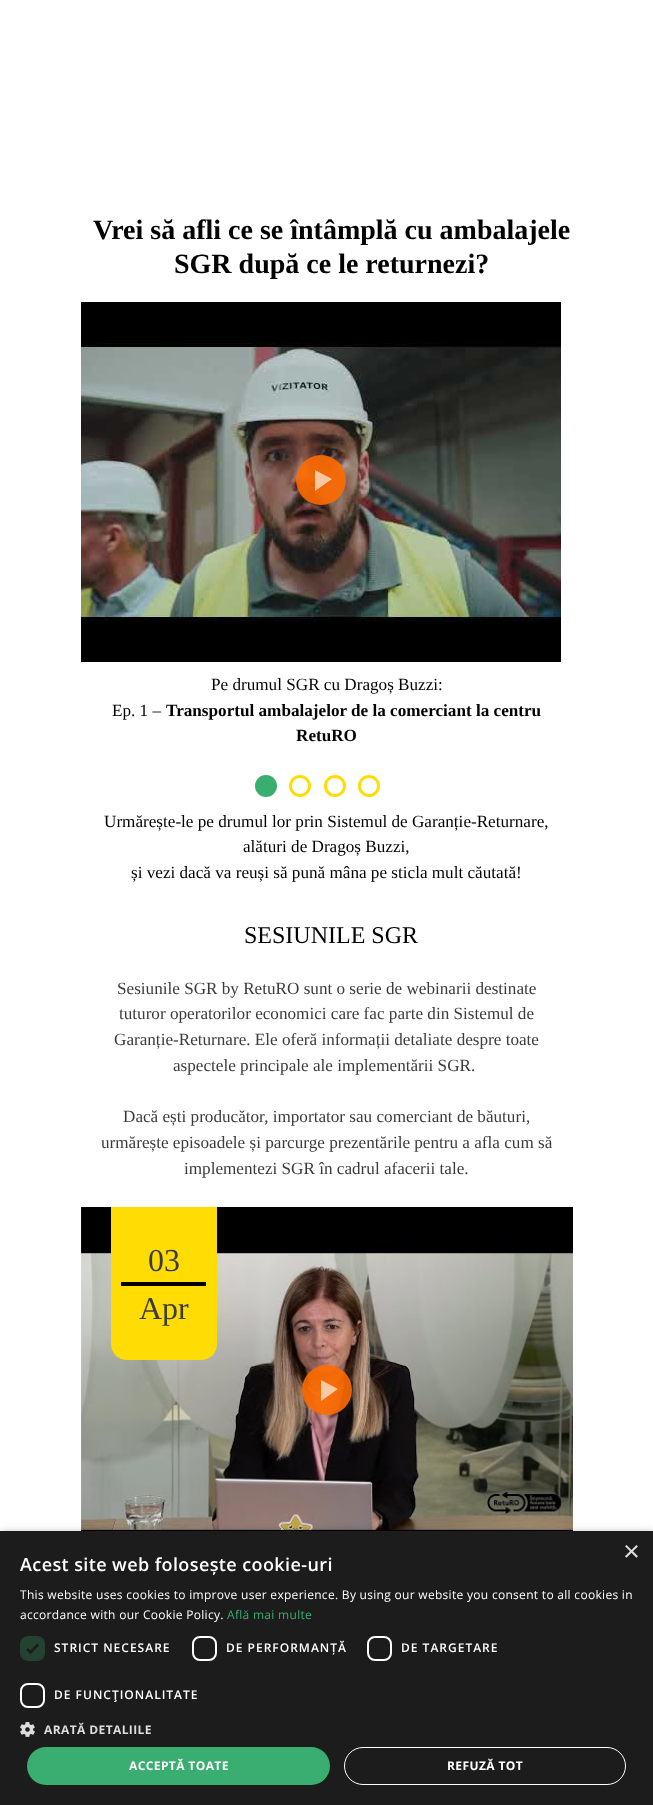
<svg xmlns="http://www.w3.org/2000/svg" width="653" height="1805">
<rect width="100%" height="100%" fill="#fff"/>
<text x="93" y="239" style="font-family:Liberation Serif;font-size:28px;font-weight:bold;fill:#000">Vrei să afli ce se întâmplă cu ambalajele</text>
<text x="174" y="273" style="font-family:Liberation Serif;font-size:28px;font-weight:bold;fill:#000">SGR după ce le returnezi?</text>
<image x="81" y="302" width="480" height="360" href="media/1.png"/>
<circle cx="321" cy="480" r="25" fill="#fe6a00e6"/>
<path d="M315 491v-21l17 9z" fill="#ffffffa1"/>
<text x="211" y="690" style="font-family:Liberation Serif;font-size:17.15px;fill:#000">Pe drumul SGR cu Dragoș Buzzi:</text>
<text x="112" y="716" style="font-family:Liberation Serif;font-size:17.15px;fill:#000">Ep. 1 –</text>
<text x="166" y="716" style="font-family:Liberation Serif;font-size:17.15px;font-weight:bold;fill:#000">Transportul ambalajelor de la comerciant la centru</text>
<text x="296" y="741" style="font-family:Liberation Serif;font-size:17.15px;font-weight:bold;fill:#000">RetuRO</text>
<circle cx="266" cy="786" r="11" fill="#39ae70"/>
<circle cx="300" cy="786" r="11" fill="#ffdc04"/>
<circle cx="300" cy="786" r="8" fill="#fff"/>
<circle cx="335" cy="786" r="11" fill="#ffdc04"/>
<circle cx="335" cy="786" r="8" fill="#fff"/>
<circle cx="369" cy="786" r="11" fill="#ffdc04"/>
<circle cx="369" cy="786" r="8" fill="#fff"/>
<text x="104" y="827" style="font-family:Liberation Serif;font-size:17.15px;fill:#000">Urmărește-le pe drumul lor prin Sistemul de Garanție-Returnare,</text>
<text x="243" y="852" style="font-family:Liberation Serif;font-size:17.15px;fill:#000">alături de Dragoș Buzzi,</text>
<text x="131" y="878" style="font-family:Liberation Serif;font-size:17.15px;fill:#000">și vezi dacă va reuși să pună mâna pe sticla mult căutată!</text>
<text x="244" y="943" style="font-family:Liberation Serif;font-size:24px;fill:#000">SESIUNILE SGR</text>
<text x="117" y="994" style="font-family:Liberation Serif;font-size:17.15px;fill:#3b3b3b">Sesiunile SGR by RetuRO sunt o serie de webinarii destinate</text>
<text x="119" y="1019" style="font-family:Liberation Serif;font-size:17.15px;fill:#3b3b3b">tuturor operatorilor economici care fac parte din Sistemul de</text>
<text x="114" y="1045" style="font-family:Liberation Serif;font-size:17.15px;fill:#3b3b3b">Garanție-Returnare. Ele oferă informații detaliate despre toate</text>
<text x="173" y="1071" style="font-family:Liberation Serif;font-size:17.15px;fill:#3b3b3b">aspectele principale ale implementării SGR.</text>
<text x="123" y="1122" style="font-family:Liberation Serif;font-size:17.15px;fill:#3b3b3b">Dacă ești producător, importator sau comerciant de băuturi,</text>
<text x="101" y="1148" style="font-family:Liberation Serif;font-size:17.15px;fill:#3b3b3b">urmărește episoadele și parcurge prezentările pentru a afla cum să</text>
<text x="184" y="1174" style="font-family:Liberation Serif;font-size:17.15px;fill:#3b3b3b">implementezi SGR în cadrul afacerii tale.</text>
<image x="81" y="1207" width="492" height="324" href="media/2.png"/>
<circle cx="327" cy="1390" r="25" fill="#fe6a00e6"/>
<path d="M321 1401v-21l17 9z" fill="#ffffffa1"/>
<path d="M111 1207h106v137c0 9-7 16-16 16h-74c-9 0-16-7-16-16z" fill="#ffdc04"/>
<text x="148" y="1271" style="font-family:Liberation Serif;font-size:32px;fill:#3b3b3b">03</text>
<rect x="121" y="1282" width="85" height="4" fill="#000"/>
<text x="139" y="1319" style="font-family:Liberation Serif;font-size:32px;fill:#3b3b3b">Apr</text>
<rect x="1" y="1533" width="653" height="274" fill="#00000059" filter="blur(4px)"/>
<rect y="1531" width="653" height="274" fill="#1c1c1c"/>
<text x="623" y="1561" style="font-family:Liberation Sans;font-size:29px;fill:#ddd">×</text>
<text x="20" y="1571" style="font-family:Open Sans;font-size:18px;font-weight:600;letter-spacing:0.4px;fill:#fff">Acest site web folosește cookie-uri</text>
<text x="20" y="1599" style="font-family:Open Sans;font-size:12px;letter-spacing:0.3px;fill:#fff">This website uses cookies to improve user experience. By using our website you consent to all cookies in</text>
<text x="20" y="1619" style="font-family:Open Sans;font-size:12px;letter-spacing:0.3px;fill:#fff">accordance with our Cookie Policy.</text>
<text x="227" y="1619" style="font-family:Open Sans;font-size:12px;letter-spacing:0.3px;fill:#39ae70">Află mai multe</text>
<rect x="20" y="1636" width="25" height="25" rx="8" fill="#244232"/>
<path d="M27 1649l3.5 3.5l7.5-8" fill="none" stroke="#1c1c1c" stroke-width="2.6"/>
<text x="54" y="1652" style="font-family:Open Sans;font-size:12px;font-weight:600;letter-spacing:1px;fill:#fff">STRICT NECESARE</text>
<rect x="193" y="1637" width="23" height="23" rx="7" fill="none" stroke="#fff" stroke-width="2"/>
<text x="226" y="1652" style="font-family:Open Sans;font-size:12px;font-weight:600;letter-spacing:1px;fill:#fff">DE PERFORMANȚĂ</text>
<rect x="368" y="1637" width="23" height="23" rx="7" fill="none" stroke="#fff" stroke-width="2"/>
<text x="401" y="1652" style="font-family:Open Sans;font-size:12px;font-weight:600;letter-spacing:1px;fill:#fff">DE TARGETARE</text>
<rect x="21" y="1684" width="23" height="23" rx="7" fill="none" stroke="#fff" stroke-width="2"/>
<text x="54" y="1699" style="font-family:Open Sans;font-size:12px;font-weight:600;letter-spacing:1px;fill:#fff">DE FUNCŢIONALITATE</text>
<image x="20" y="1722" width="15" height="15" href="media/3.png"/>
<text x="44" y="1734" style="font-family:Open Sans;font-size:12px;font-weight:bold;letter-spacing:0.4px;fill:#ddd">ARATĂ DETALIILE</text>
<rect x="27" y="1747" width="303" height="38" rx="19" fill="#39ae70"/>
<text x="129" y="1770" style="font-family:Open Sans;font-size:12px;font-weight:bold;letter-spacing:0.4px;fill:#fff">ACCEPTĂ TOATE</text>
<rect x="344.5" y="1747.5" width="281" height="37" rx="18.5" fill="none" stroke="#fff"/>
<text x="447" y="1770" style="font-family:Open Sans;font-size:12px;font-weight:bold;letter-spacing:0.4px;fill:#fff">REFUZĂ TOT</text>
</svg>
